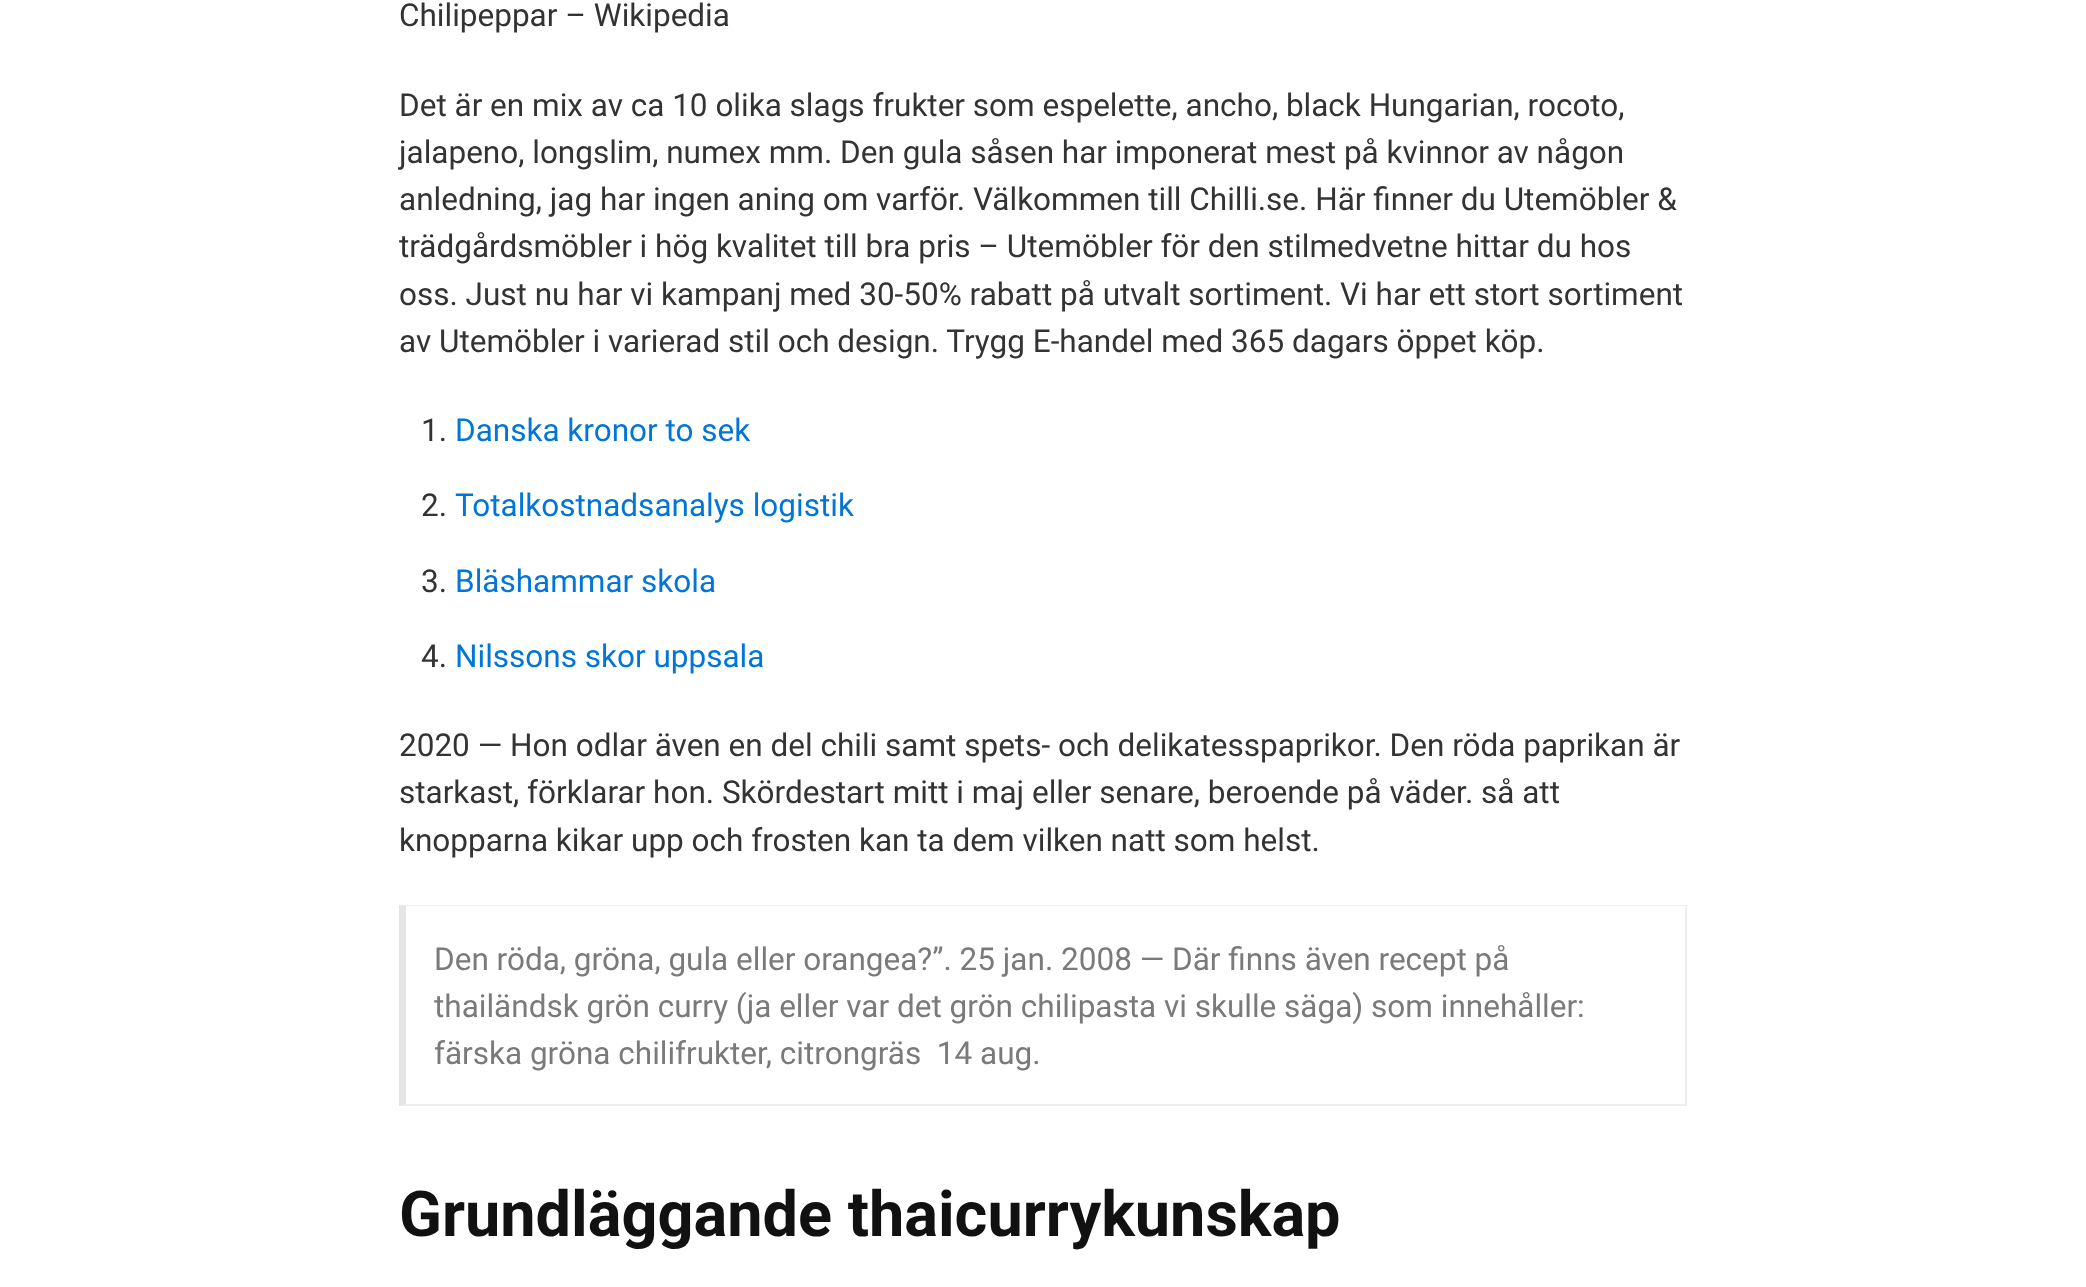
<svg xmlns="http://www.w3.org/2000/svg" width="2086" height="1287">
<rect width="100%" height="100%" fill="#fff"/>
<text x="399" y="26" style="font-family:Roboto;font-size:31.5px;fill:#333">Chilipeppar – Wikipedia</text>
<text x="399" y="116" style="font-family:Roboto;font-size:31.5px;fill:#333">Det är en mix av ca 10 olika slags frukter som espelette, ancho, black Hungarian, rocoto,</text>
<text x="399" y="163" style="font-family:Roboto;font-size:31.5px;fill:#333">jalapeno, longslim, numex mm. Den gula såsen har imponerat mest på kvinnor av någon</text>
<text x="399" y="210" style="font-family:Roboto;font-size:31.5px;fill:#333">anledning, jag har ingen aning om varför. Välkommen till Chilli.se. Här finner du Utemöbler &amp;</text>
<text x="399" y="257" style="font-family:Roboto;font-size:31.5px;fill:#333">trädgårdsmöbler i hög kvalitet till bra pris – Utemöbler för den stilmedvetne hittar du hos</text>
<text x="399" y="305" style="font-family:Roboto;font-size:31.5px;fill:#333">oss. Just nu har vi kampanj med 30-50% rabatt på utvalt sortiment. Vi har ett stort sortiment</text>
<text x="399" y="352" style="font-family:Roboto;font-size:31.5px;fill:#333">av Utemöbler i varierad stil och design. Trygg E-handel med 365 dagars öppet köp.</text>
<text x="421" y="441" style="font-family:Roboto;font-size:31.5px;fill:#333">1.</text>
<text x="455" y="441" style="font-family:Roboto;font-size:31.5px;fill:#0275d8">Danska kronor to sek</text>
<text x="421" y="516" style="font-family:Roboto;font-size:31.5px;fill:#333">2.</text>
<text x="455" y="516" style="font-family:Roboto;font-size:31.5px;fill:#0275d8">Totalkostnadsanalys logistik</text>
<text x="421" y="592" style="font-family:Roboto;font-size:31.5px;fill:#333">3.</text>
<text x="455" y="592" style="font-family:Roboto;font-size:31.5px;fill:#0275d8">Bläshammar skola</text>
<text x="421" y="667" style="font-family:Roboto;font-size:31.5px;fill:#333">4.</text>
<text x="455" y="667" style="font-family:Roboto;font-size:31.5px;fill:#0275d8">Nilssons skor uppsala</text>
<text x="399" y="756" style="font-family:Roboto;font-size:31.5px;fill:#333">2020 — Hon odlar även en del chili samt spets- och delikatesspaprikor. Den röda paprikan är</text>
<text x="399" y="803" style="font-family:Roboto;font-size:31.5px;fill:#333">starkast, förklarar hon. Skördestart mitt i maj eller senare, beroende på väder. så att</text>
<text x="399" y="851" style="font-family:Roboto;font-size:31.5px;fill:#333">knopparna kikar upp och frosten kan ta dem vilken natt som helst.</text>
<path d="M399 905h1288l-2 1h-1279z" fill="#eee"/>
<rect x="1685" y="905" width="2" height="201" fill="#eee"/>
<path d="M1687 1106h-1288l7-2h1279z" fill="#eee"/>
<path d="M399 1106v-201l7 1v198z" fill="#0000001a"/>
<text x="434" y="970" style="font-family:Roboto;font-size:31.5px;fill:#7a7a7a">Den röda, gröna, gula eller orangea?”. 25 jan. 2008 — Där finns även recept på</text>
<text x="434" y="1017" style="font-family:Roboto;font-size:31.5px;fill:#7a7a7a">thailändsk grön curry (ja eller var det grön chilipasta vi skulle säga) som innehåller:</text>
<text x="434" y="1064" style="font-family:Roboto;font-size:31.5px;fill:#7a7a7a" xml:space="preserve">färska gröna chilifrukter, citrongräs  14 aug.</text>
<text x="399" y="1236" style="font-family:Roboto;font-size:63px;font-weight:bold;fill:#111">Grundläggande thaicurrykunskap</text>
</svg>
